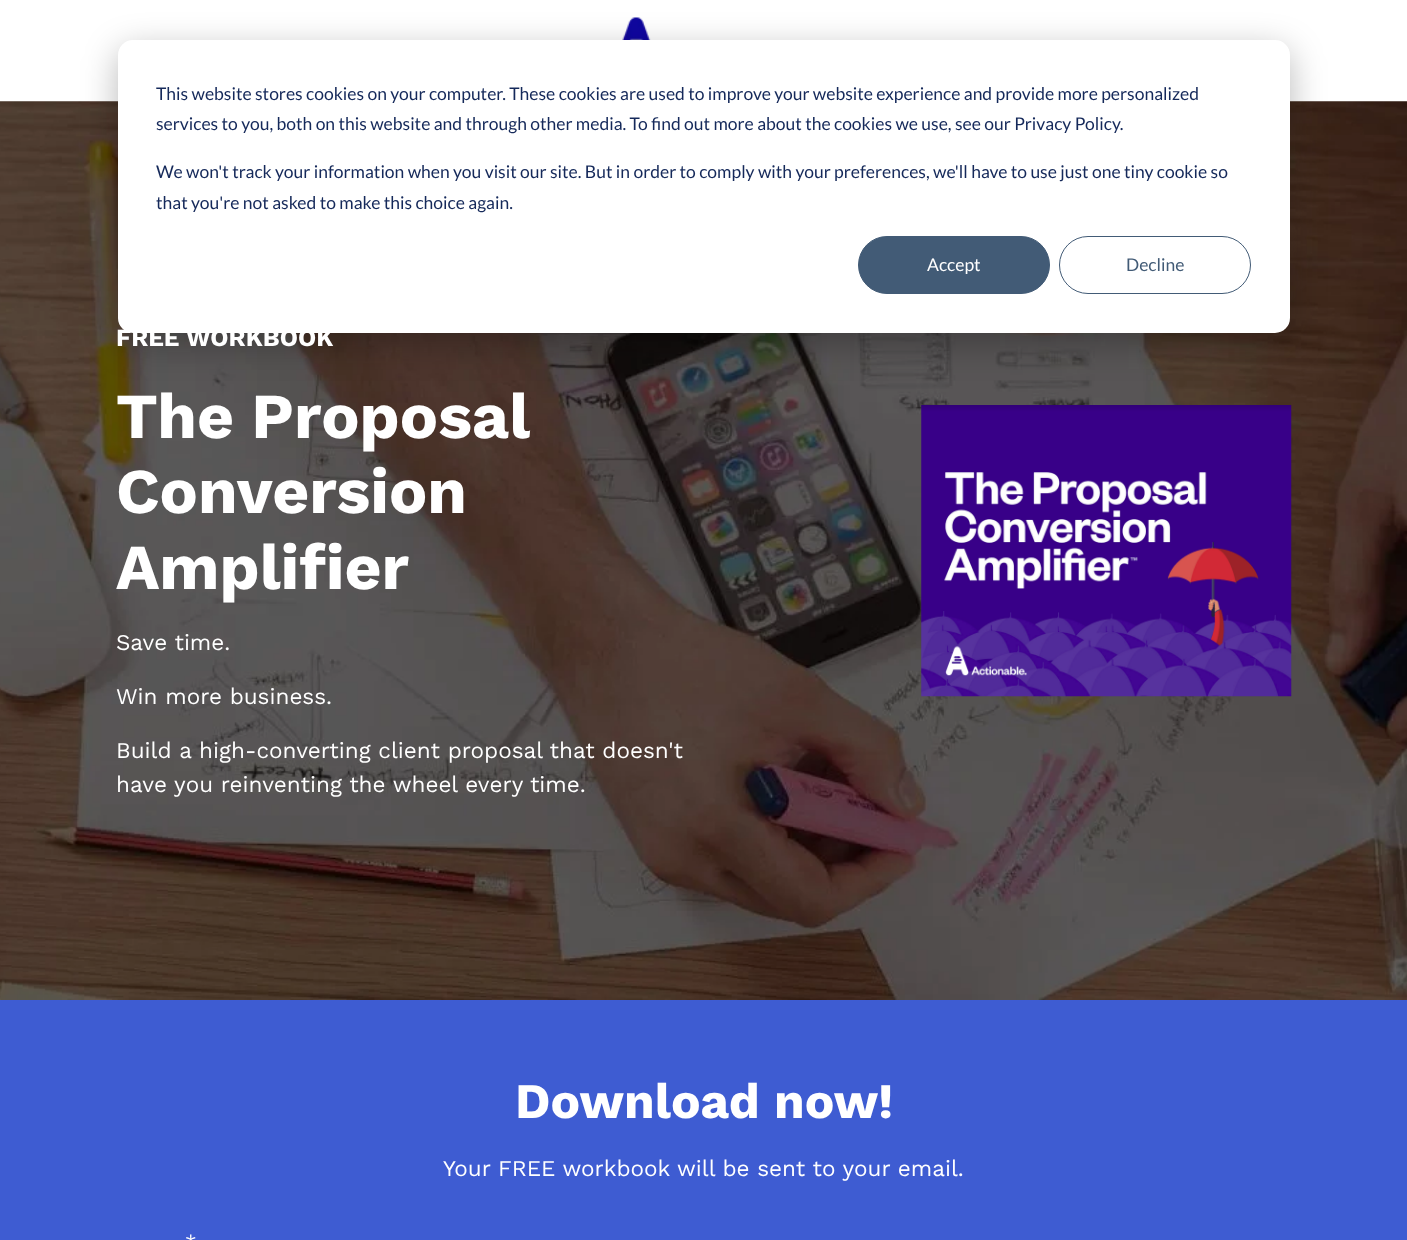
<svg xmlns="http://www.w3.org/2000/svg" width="1407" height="1240">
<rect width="100%" height="100%" fill="#fff"/>
<image x="622" y="17" width="29" height="23" href="media/1.png"/>
<image x="0" y="101" width="1407" height="899" href="media/2.png"/>
<rect x="118" y="50" width="1172" height="293" rx="15" fill="#00000047" filter="blur(17.5px)"/>
<rect x="118" y="40" width="1172" height="293" rx="15" fill="#fff"/>
<text x="156" y="100" style="font-family:Lato;font-size:17.5px;fill:#15295a">This website stores cookies on your computer. These cookies are used to improve your website experience and provide more personalized</text>
<text x="156" y="130" style="font-family:Lato;font-size:17.5px;fill:#15295a">services to you, both on this website and through other media. To find out more about the cookies we use, see our Privacy Policy.</text>
<text x="156" y="178" style="font-family:Lato;font-size:17.5px;fill:#15295a">We won't track your information when you visit our site. But in order to comply with your preferences, we'll have to use just one tiny cookie so</text>
<text x="156" y="209" style="font-family:Lato;font-size:17.5px;fill:#15295a">that you're not asked to make this choice again.</text>
<rect x="858.5" y="236.5" width="191" height="57" rx="28.5" fill="#425b76" stroke="#425b76"/>
<text x="927" y="271" style="font-family:Lato;font-size:17.5px;fill:#fff">Accept</text>
<rect x="1059.5" y="236.5" width="191" height="57" rx="28.5" fill="none" stroke="#425b76"/>
<text x="1126" y="271" style="font-family:Lato;font-size:17.5px;fill:#425b76">Decline</text>
<text x="116" y="346" style="font-family:Work Sans;font-size:24.75px;font-weight:bold;fill:#fff">FREE WORKBOOK</text>
<text x="116" y="438" word-spacing="-1" style="font-family:Work Sans;font-size:64px;font-weight:bold;fill:#fff">The Proposal</text>
<text x="116" y="513" style="font-family:Work Sans;font-size:64px;font-weight:bold;fill:#fff">Conversion</text>
<text x="116" y="589" style="font-family:Work Sans;font-size:64px;font-weight:bold;fill:#fff">Amplifier</text>
<text x="116" y="650" style="font-family:Work Sans;font-size:22.5px;fill:#fff">Save time.</text>
<text x="116" y="704" style="font-family:Work Sans;font-size:22.5px;fill:#fff">Win more business.</text>
<text x="116" y="758" style="font-family:Work Sans;font-size:22.5px;fill:#fff">Build a high-converting client proposal that doesn't</text>
<text x="116" y="792" style="font-family:Work Sans;font-size:22.5px;fill:#fff">have you reinventing the wheel every time.</text>
<image x="921" y="405" width="371" height="292" href="media/3.png"/>
<rect y="1000" width="1407" height="240" fill="#3e5cd2"/>
<text x="515" y="1118" style="font-family:Work Sans;font-size:49.5px;font-weight:bold;fill:#fff">Download now!</text>
<text x="443" y="1176" style="font-family:Work Sans;font-size:22.5px;fill:#fff">Your FREE workbook will be sent to your email.</text>
<text x="185" y="1249" style="font-family:Work Sans;font-size:20px;fill:#fff">*</text>
</svg>
